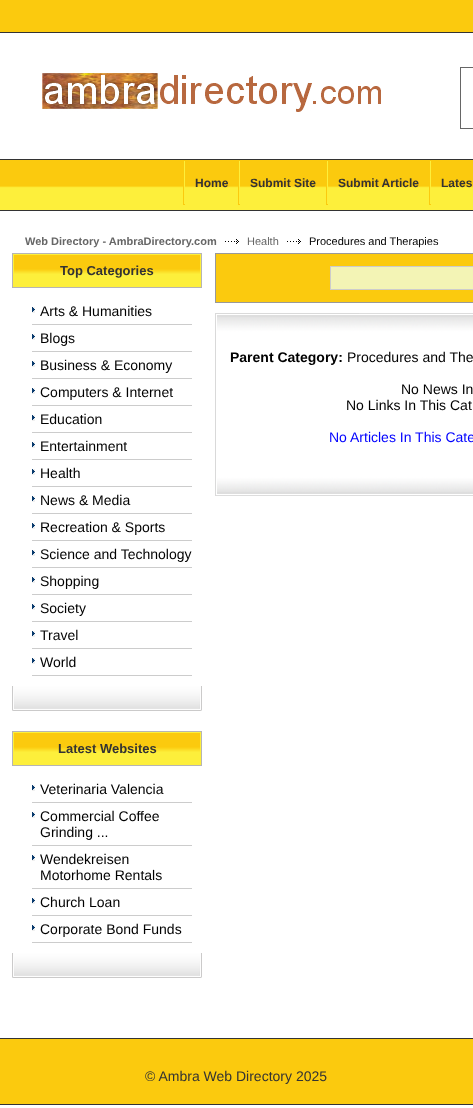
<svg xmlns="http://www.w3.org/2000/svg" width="473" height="1108">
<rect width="100%" height="100%" fill="#fff"/>
<rect width="473" height="32" fill="#fbca0e"/>
<rect y="32" width="473" height="1" fill="#333"/>
<image x="42" y="73" width="339" height="39" href="media/1.png"/>
<rect x="460.5" y="67.5" width="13" height="61" fill="none" stroke="#666"/>
<image x="0" y="160" width="473" height="50" href="media/2.png"/>
<rect y="159" width="473" height="1" fill="#333"/>
<rect y="210" width="473" height="1" fill="#333"/>
<image x="183" y="161" width="2" height="44" href="media/3.png"/>
<text x="195" y="187" style="font-family:Liberation Sans;font-size:12px;font-weight:bold;fill:#333">Home</text>
<image x="238" y="161" width="2" height="44" href="media/3.png"/>
<text x="250" y="187" style="font-family:Liberation Sans;font-size:12px;font-weight:bold;fill:#333">Submit Site</text>
<image x="326" y="161" width="2" height="44" href="media/3.png"/>
<text x="338" y="187" style="font-family:Liberation Sans;font-size:12px;font-weight:bold;fill:#333">Submit Article</text>
<image x="429" y="161" width="2" height="44" href="media/3.png"/>
<text x="441" y="187" style="font-family:Liberation Sans;font-size:12px;font-weight:bold;fill:#333">Lates</text>
<text x="25" y="245" style="font-family:Liberation Sans;font-size:11px;font-weight:bold;fill:#666">Web Directory - AmbraDirectory.com</text>
<image x="225" y="239" width="14" height="5" href="media/4.png"/>
<text x="247" y="245" style="font-family:Liberation Sans;font-size:11px;fill:#666">Health</text>
<image x="287" y="239" width="14" height="5" href="media/4.png"/>
<text x="309" y="245" style="font-family:Liberation Sans;font-size:11px;fill:#000">Procedures and Therapies</text>
<image x="12" y="253" width="190" height="35" href="media/5.png"/>
<text x="60" y="275" style="font-family:Liberation Sans;font-size:13px;font-weight:bold;fill:#333">Top Categories</text>
<image x="32" y="307" width="3" height="6" href="media/6.png"/>
<rect x="32" y="324" width="160" height="1" fill="#ccc"/>
<text x="40" y="316" style="font-family:Liberation Sans;font-size:14px;fill:#000">Arts &amp; Humanities</text>
<image x="32" y="334" width="3" height="6" href="media/6.png"/>
<rect x="32" y="351" width="160" height="1" fill="#ccc"/>
<text x="40" y="343" style="font-family:Liberation Sans;font-size:14px;fill:#000">Blogs</text>
<image x="32" y="361" width="3" height="6" href="media/6.png"/>
<rect x="32" y="378" width="160" height="1" fill="#ccc"/>
<text x="40" y="370" style="font-family:Liberation Sans;font-size:14px;fill:#000">Business &amp; Economy</text>
<image x="32" y="388" width="3" height="6" href="media/6.png"/>
<rect x="32" y="405" width="160" height="1" fill="#ccc"/>
<text x="40" y="397" style="font-family:Liberation Sans;font-size:14px;fill:#000">Computers &amp; Internet</text>
<image x="32" y="415" width="3" height="6" href="media/6.png"/>
<rect x="32" y="432" width="160" height="1" fill="#ccc"/>
<text x="40" y="424" style="font-family:Liberation Sans;font-size:14px;fill:#000">Education</text>
<image x="32" y="442" width="3" height="6" href="media/6.png"/>
<rect x="32" y="459" width="160" height="1" fill="#ccc"/>
<text x="40" y="451" style="font-family:Liberation Sans;font-size:14px;fill:#000">Entertainment</text>
<image x="32" y="469" width="3" height="6" href="media/6.png"/>
<rect x="32" y="486" width="160" height="1" fill="#ccc"/>
<text x="40" y="478" style="font-family:Liberation Sans;font-size:14px;fill:#000">Health</text>
<image x="32" y="496" width="3" height="6" href="media/6.png"/>
<rect x="32" y="513" width="160" height="1" fill="#ccc"/>
<text x="40" y="505" style="font-family:Liberation Sans;font-size:14px;fill:#000">News &amp; Media</text>
<image x="32" y="523" width="3" height="6" href="media/6.png"/>
<rect x="32" y="540" width="160" height="1" fill="#ccc"/>
<text x="40" y="532" style="font-family:Liberation Sans;font-size:14px;fill:#000">Recreation &amp; Sports</text>
<image x="32" y="550" width="3" height="6" href="media/6.png"/>
<rect x="32" y="567" width="160" height="1" fill="#ccc"/>
<text x="40" y="559" style="font-family:Liberation Sans;font-size:14px;fill:#000">Science and Technology</text>
<image x="32" y="577" width="3" height="6" href="media/6.png"/>
<rect x="32" y="594" width="160" height="1" fill="#ccc"/>
<text x="40" y="586" style="font-family:Liberation Sans;font-size:14px;fill:#000">Shopping</text>
<image x="32" y="604" width="3" height="6" href="media/6.png"/>
<rect x="32" y="621" width="160" height="1" fill="#ccc"/>
<text x="40" y="613" style="font-family:Liberation Sans;font-size:14px;fill:#000">Society</text>
<image x="32" y="631" width="3" height="6" href="media/6.png"/>
<rect x="32" y="648" width="160" height="1" fill="#ccc"/>
<text x="40" y="640" style="font-family:Liberation Sans;font-size:14px;fill:#000">Travel</text>
<image x="32" y="658" width="3" height="6" href="media/6.png"/>
<rect x="32" y="675" width="160" height="1" fill="#ccc"/>
<text x="40" y="667" style="font-family:Liberation Sans;font-size:14px;fill:#000">World</text>
<image x="12" y="686" width="190" height="25" href="media/7.png"/>
<image x="12" y="731" width="190" height="35" href="media/5.png"/>
<text x="58" y="753" style="font-family:Liberation Sans;font-size:13px;font-weight:bold;fill:#333">Latest Websites</text>
<image x="32" y="785" width="3" height="6" href="media/6.png"/>
<rect x="32" y="802" width="160" height="1" fill="#ccc"/>
<text x="40" y="794" style="font-family:Liberation Sans;font-size:14px;fill:#000">Veterinaria Valencia</text>
<image x="32" y="812" width="3" height="6" href="media/6.png"/>
<rect x="32" y="845" width="160" height="1" fill="#ccc"/>
<text x="40" y="821" style="font-family:Liberation Sans;font-size:14px;fill:#000">Commercial Coffee</text>
<text x="40" y="837" style="font-family:Liberation Sans;font-size:14px;fill:#000">Grinding ...</text>
<image x="32" y="855" width="3" height="6" href="media/6.png"/>
<rect x="32" y="888" width="160" height="1" fill="#ccc"/>
<text x="40" y="864" style="font-family:Liberation Sans;font-size:14px;fill:#000">Wendekreisen</text>
<text x="40" y="880" style="font-family:Liberation Sans;font-size:14px;fill:#000">Motorhome Rentals</text>
<image x="32" y="898" width="3" height="6" href="media/6.png"/>
<rect x="32" y="915" width="160" height="1" fill="#ccc"/>
<text x="40" y="907" style="font-family:Liberation Sans;font-size:14px;fill:#000">Church Loan</text>
<image x="32" y="925" width="3" height="6" href="media/6.png"/>
<rect x="32" y="942" width="160" height="1" fill="#ccc"/>
<text x="40" y="934" style="font-family:Liberation Sans;font-size:14px;fill:#000">Corporate Bond Funds</text>
<image x="12" y="953" width="190" height="25" href="media/7.png"/>
<rect x="215.5" y="253.5" width="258" height="49" fill="#fbca0e" stroke="#999"/>
<rect x="330.5" y="266.5" width="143" height="23" fill="#f3f4b5" stroke="#ccc"/>
<image x="215" y="313" width="258" height="20" href="media/8.png"/>
<rect x="215" y="333" width="1" height="138" fill="#d9d9d9"/>
<text x="230" y="362" style="font-family:Liberation Sans;font-size:14px;font-weight:bold;fill:#000">Parent Category:</text>
<text x="347" y="362" style="font-family:Liberation Sans;font-size:14px;fill:#000">Procedures and The</text>
<text x="401" y="394" style="font-family:Liberation Sans;font-size:14px;fill:#000">No News In</text>
<text x="346" y="410" style="font-family:Liberation Sans;font-size:14px;fill:#000">No Links In This Cat</text>
<text x="329" y="442" style="font-family:Liberation Sans;font-size:14px;fill:#00f">No Articles In This Cate</text>
<image x="215" y="471" width="258" height="25" href="media/9.png"/>
<rect y="1039" width="473" height="65" fill="#fbca0e"/>
<rect y="1038" width="473" height="1" fill="#333"/>
<rect y="1104" width="473" height="1" fill="#333"/>
<text x="145" y="1081" style="font-family:Liberation Sans;font-size:14px;fill:#333">© Ambra Web Directory 2025</text>
</svg>
